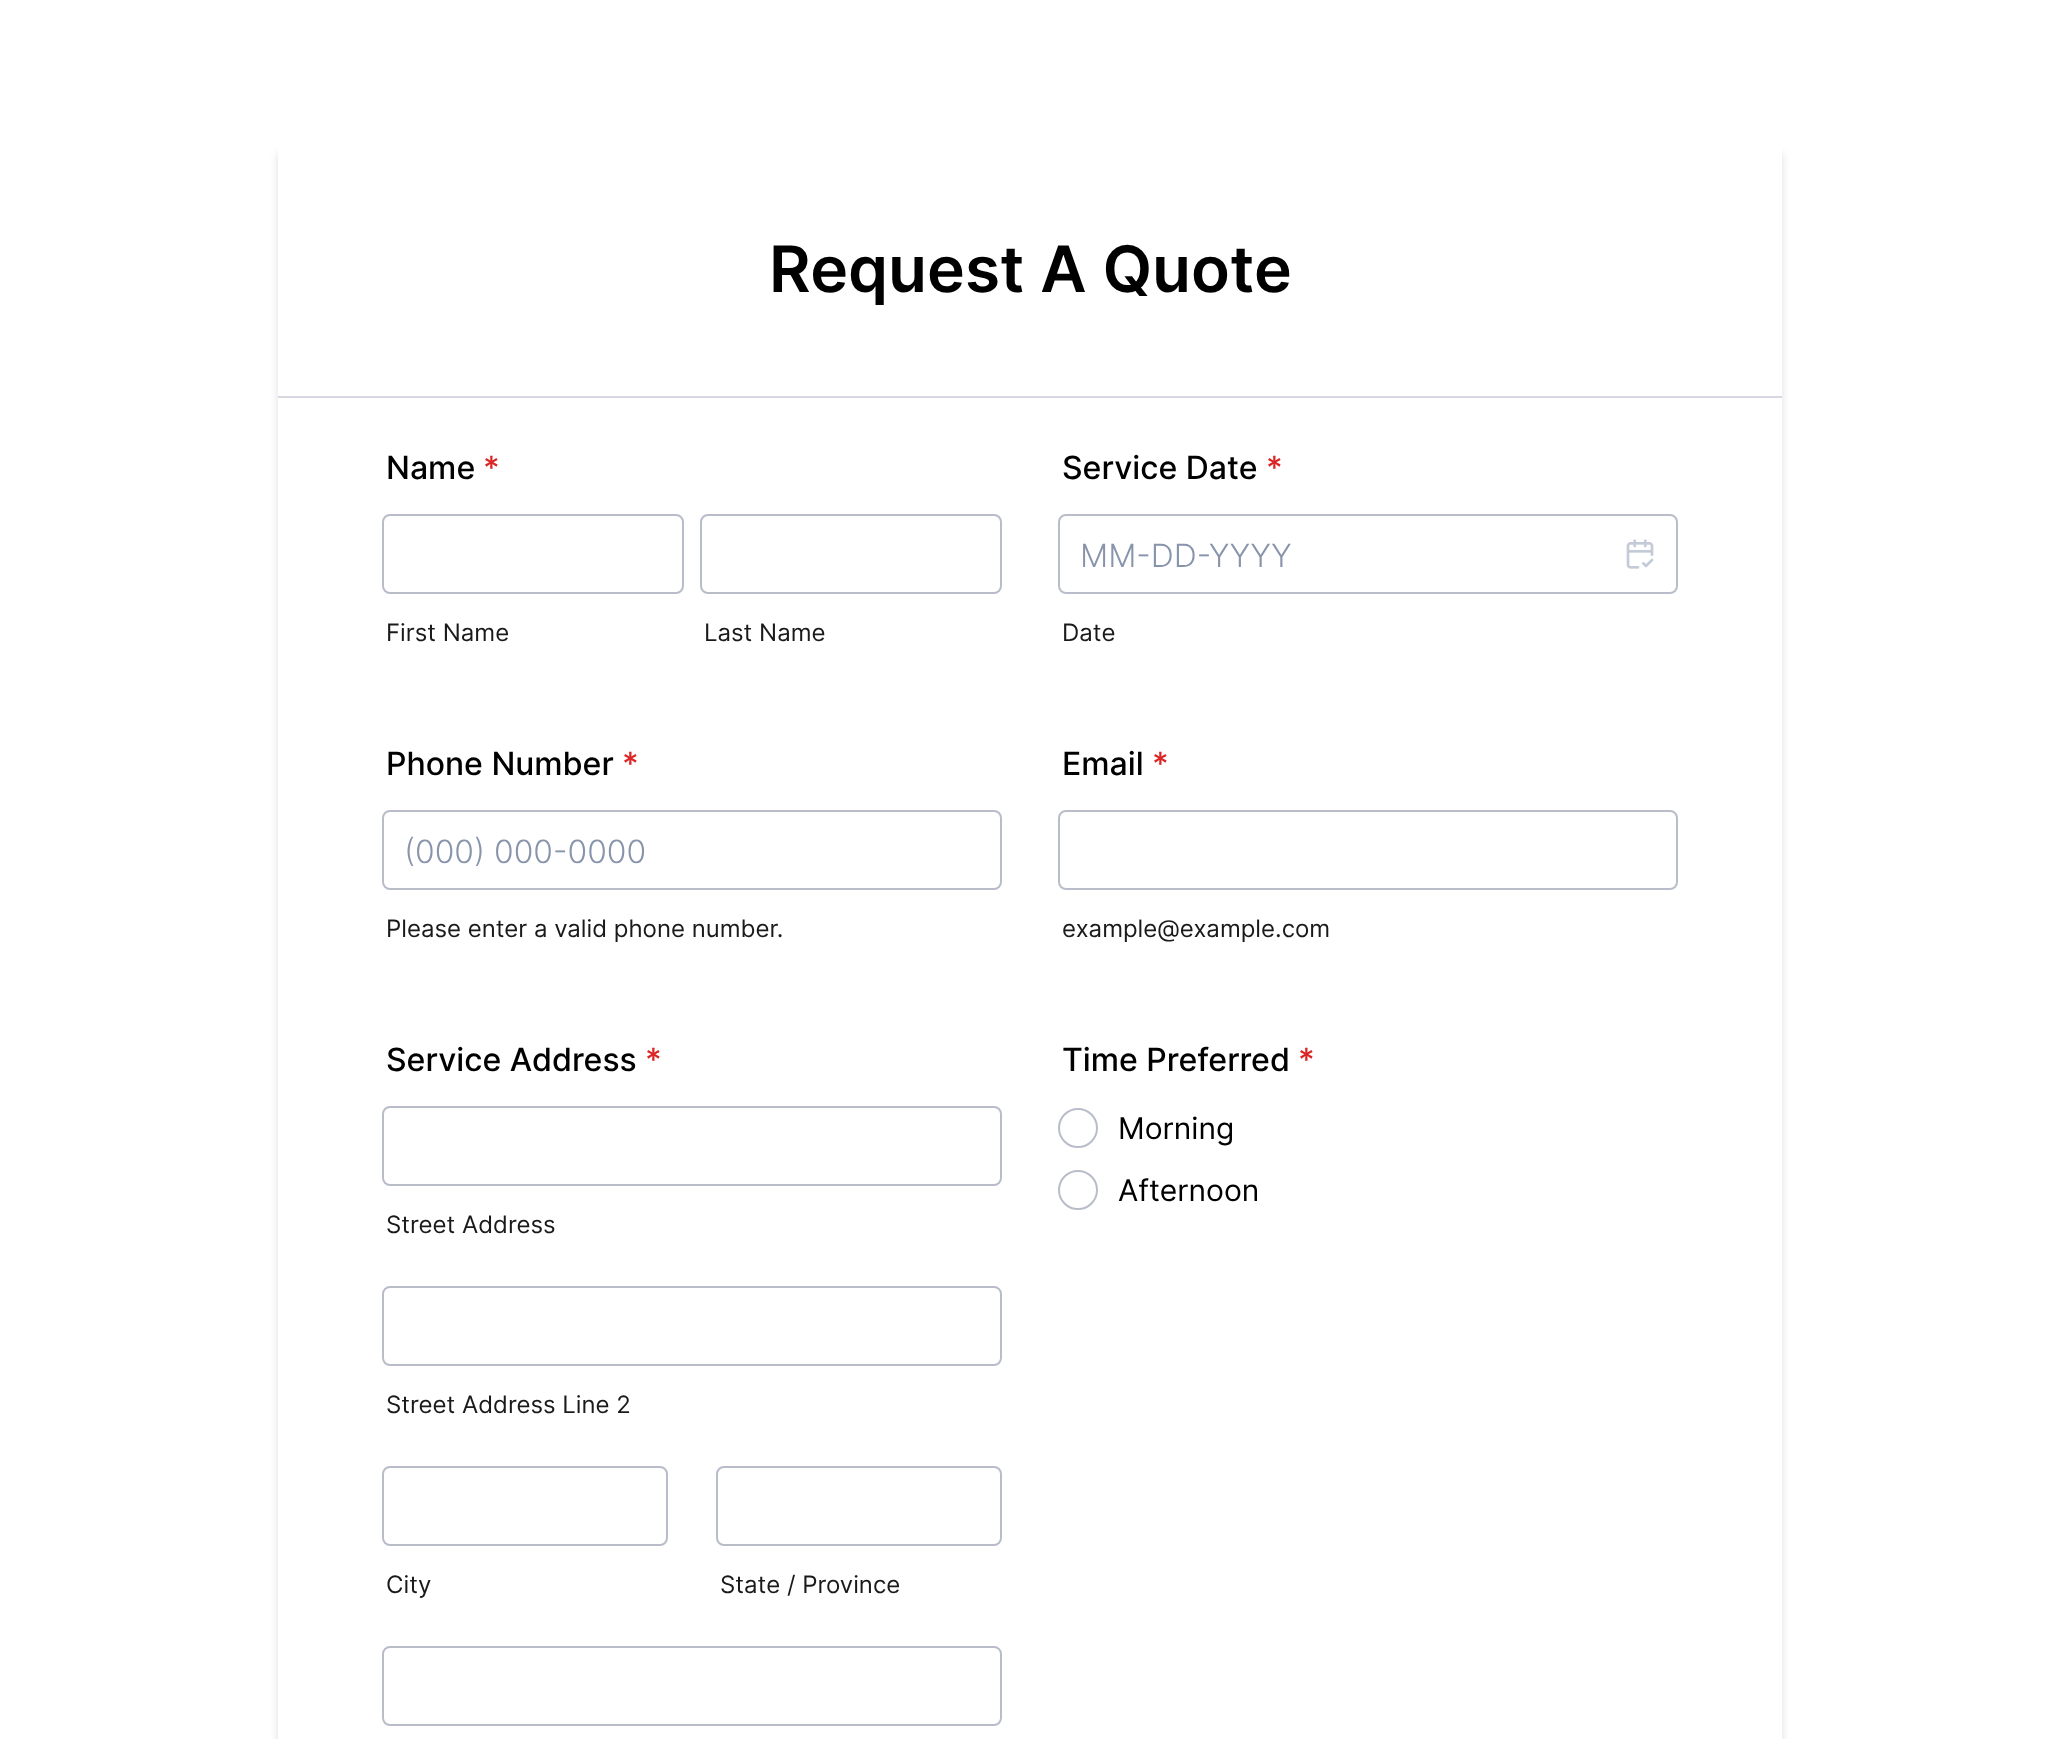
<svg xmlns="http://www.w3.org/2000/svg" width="2059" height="1739">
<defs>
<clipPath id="clip1"><path d="M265 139h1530v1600h-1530zm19 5h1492c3.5 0 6 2.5 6 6v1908c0 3.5-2.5 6-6 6h-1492c-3.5 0-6-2.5-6-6v-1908c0-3.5 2.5-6 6-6z" clip-rule="evenodd"/></clipPath>
</defs>
<rect width="100%" height="100%" fill="#fff"/>
<g clip-path="url(#clip1)">
<rect x="278" y="152" width="1504" height="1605" rx="6" fill="#57647e36" filter="blur(4px)"/>
</g>
<rect x="278" y="396" width="1504" height="2" fill="#d7d8e1"/>
<text x="769" y="292" style="font-family:Inter;font-size:64px;font-weight:600;fill:#000">Request A Quote</text>
<text x="386" y="479" style="font-family:Inter;font-size:32px;font-weight:500;fill:#000">Name</text>
<text x="483" y="479" style="font-family:Inter;font-size:32px;font-weight:500;fill:#dc2626">*</text>
<rect x="383" y="515" width="300" height="78" rx="7" fill="none" stroke="#b8bdc9" stroke-width="2"/>
<text x="386" y="641" style="font-family:Inter;font-size:24px;fill:#1a1a1a">First Name</text>
<rect x="701" y="515" width="300" height="78" rx="7" fill="none" stroke="#b8bdc9" stroke-width="2"/>
<text x="704" y="641" style="font-family:Inter;font-size:24px;fill:#1a1a1a">Last Name</text>
<text x="1062" y="479" style="font-family:Inter;font-size:32px;font-weight:500;fill:#000">Service Date</text>
<text x="1266" y="479" style="font-family:Inter;font-size:32px;font-weight:500;fill:#dc2626">*</text>
<image x="1626" y="539" width="28" height="30" href="media/1.png"/>
<rect x="1059" y="515" width="618" height="78" rx="7" fill="none" stroke="#b8bdc9" stroke-width="2"/>
<text x="1080" y="567" style="font-family:Inter;font-size:32px;font-weight:300;fill:#8894ab">MM-DD-YYYY</text>
<text x="1062" y="641" style="font-family:Inter;font-size:24px;fill:#1a1a1a">Date</text>
<text x="386" y="775" style="font-family:Inter;font-size:32px;font-weight:500;fill:#000">Phone Number</text>
<text x="622" y="775" style="font-family:Inter;font-size:32px;font-weight:500;fill:#dc2626">*</text>
<rect x="383" y="811" width="618" height="78" rx="7" fill="none" stroke="#b8bdc9" stroke-width="2"/>
<text x="404" y="863" style="font-family:Inter;font-size:32px;font-weight:300;fill:#8894ab">(000) 000-0000</text>
<text x="386" y="937" style="font-family:Inter;font-size:24px;fill:#1a1a1a">Please enter a valid phone number.</text>
<text x="1062" y="775" style="font-family:Inter;font-size:32px;font-weight:500;fill:#000">Email</text>
<text x="1152" y="775" style="font-family:Inter;font-size:32px;font-weight:500;fill:#dc2626">*</text>
<rect x="1059" y="811" width="618" height="78" rx="7" fill="none" stroke="#b8bdc9" stroke-width="2"/>
<text x="1062" y="937" style="font-family:Inter;font-size:24px;fill:#1a1a1a">example@example.com</text>
<text x="386" y="1071" style="font-family:Inter;font-size:32px;font-weight:500;fill:#000">Service Address</text>
<text x="645" y="1071" style="font-family:Inter;font-size:32px;font-weight:500;fill:#dc2626">*</text>
<rect x="383" y="1107" width="618" height="78" rx="7" fill="none" stroke="#b8bdc9" stroke-width="2"/>
<text x="386" y="1233" style="font-family:Inter;font-size:24px;fill:#1a1a1a">Street Address</text>
<rect x="383" y="1287" width="618" height="78" rx="7" fill="none" stroke="#b8bdc9" stroke-width="2"/>
<text x="386" y="1413" style="font-family:Inter;font-size:24px;fill:#1a1a1a">Street Address Line 2</text>
<rect x="383" y="1467" width="284" height="78" rx="7" fill="none" stroke="#b8bdc9" stroke-width="2"/>
<text x="386" y="1593" style="font-family:Inter;font-size:24px;fill:#1a1a1a">City</text>
<rect x="717" y="1467" width="284" height="78" rx="7" fill="none" stroke="#b8bdc9" stroke-width="2"/>
<text x="720" y="1593" style="font-family:Inter;font-size:24px;fill:#1a1a1a">State / Province</text>
<rect x="383" y="1647" width="618" height="78" rx="7" fill="none" stroke="#b8bdc9" stroke-width="2"/>
<text x="1062" y="1071" style="font-family:Inter;font-size:32px;font-weight:500;fill:#000">Time Preferred</text>
<text x="1298" y="1071" style="font-family:Inter;font-size:32px;font-weight:500;fill:#dc2626">*</text>
<circle cx="1078" cy="1128" r="19" fill="none" stroke="#b8bdc9" stroke-width="2"/>
<text x="1118" y="1139" style="font-family:Inter;font-size:30px;fill:#000">Morning</text>
<circle cx="1078" cy="1190" r="19" fill="none" stroke="#b8bdc9" stroke-width="2"/>
<text x="1118" y="1201" style="font-family:Inter;font-size:30px;fill:#000">Afternoon</text>
</svg>
